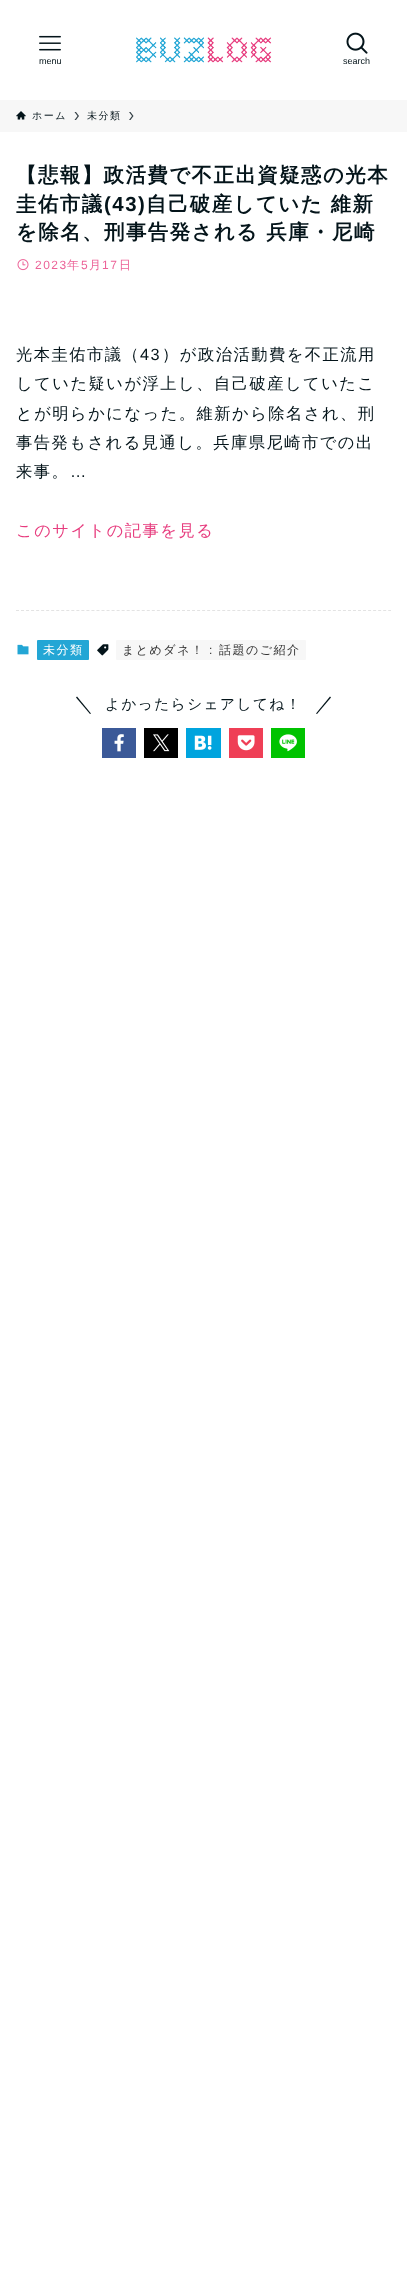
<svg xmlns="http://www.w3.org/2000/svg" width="407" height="2291">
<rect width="100%" height="100%" fill="#fff"/>
<image x="39" y="35" width="22" height="16" href="media/1.png"/>
<text x="39" y="64" style="font-family:Liberation Sans;font-size:9px;fill:#04141a">menu</text>
<image x="136" y="37" width="136" height="26" href="media/2.png"/>
<image x="346" y="32" width="22" height="22" href="media/3.png"/>
<text x="343" y="64" style="font-family:Liberation Sans;font-size:9px;fill:#04141a">search</text>
<rect y="100" width="407" height="32" fill="#f7f7f7"/>
<image x="16" y="111" width="10" height="9" href="media/4.png"/>
<text x="32" y="119" style="font-family:WenQuanYi Zen Hei;font-size:10px;font-weight:500;letter-spacing:1.5px;fill:#04141a">ホーム</text>
<path d="M76 112h-1.5l3 4l-3 4h1.5l3-4z" fill="#354146"/>
<text x="87" y="119" style="font-family:WenQuanYi Zen Hei;font-size:10px;font-weight:500;letter-spacing:1.5px;fill:#04141a">未分類</text>
<path d="M130.5 112h-1.5l3 4l-3 4h1.5l3-4z" fill="#354146"/>
<text x="16" y="182" style="font-family:WenQuanYi Zen Hei;font-size:20.4px;font-weight:bold;letter-spacing:1.5px;fill:#04141a">【悲報】政活費で不正出資疑惑の光本</text>
<text x="16" y="211" style="font-family:WenQuanYi Zen Hei;font-size:20.4px;font-weight:bold;letter-spacing:1.5px;fill:#04141a">圭佑市議</text>
<text x="104" y="211" style="font-family:Liberation Sans;font-size:20.4px;font-weight:bold;letter-spacing:1.5px;fill:#04141a">(43)</text>
<text x="146" y="211" style="font-family:WenQuanYi Zen Hei;font-size:20.4px;font-weight:bold;letter-spacing:1.5px;fill:#04141a">自己破産していた 維新</text>
<text x="16" y="239" style="font-family:WenQuanYi Zen Hei;font-size:20.4px;font-weight:bold;letter-spacing:1.5px;fill:#04141a">を除名、刑事告発される 兵庫・尼崎</text>
<image x="17" y="259" width="12" height="12" href="media/5.png"/>
<text x="35" y="269" style="font-family:Liberation Sans;font-size:12px;letter-spacing:1.5px;fill:#ec6398">2023</text>
<text x="67" y="269" style="font-family:WenQuanYi Zen Hei;font-size:12px;font-weight:500;letter-spacing:1.5px;fill:#ec6398">年</text>
<text x="81" y="269" style="font-family:Liberation Sans;font-size:12px;letter-spacing:1.5px;fill:#ec6398">5</text>
<text x="89" y="269" style="font-family:WenQuanYi Zen Hei;font-size:12px;font-weight:500;letter-spacing:1.5px;fill:#ec6398">月</text>
<text x="102" y="269" style="font-family:Liberation Sans;font-size:12px;letter-spacing:1.5px;fill:#ec6398">17</text>
<text x="119" y="269" style="font-family:WenQuanYi Zen Hei;font-size:12px;font-weight:500;letter-spacing:1.5px;fill:#ec6398">日</text>
<text x="16" y="360" style="font-family:WenQuanYi Zen Hei;font-size:16.25px;font-weight:500;letter-spacing:1.5px;fill:#04141a">光本圭佑市議（</text>
<text x="140" y="360" style="font-family:Liberation Sans;font-size:16.25px;letter-spacing:1.5px;fill:#04141a">43</text>
<text x="162" y="360" style="font-family:WenQuanYi Zen Hei;font-size:16.25px;font-weight:500;letter-spacing:1.5px;fill:#04141a">）が政治活動費を不正流用</text>
<text x="16" y="389" style="font-family:WenQuanYi Zen Hei;font-size:16.25px;font-weight:500;letter-spacing:1.5px;fill:#04141a">していた疑いが浮上し、自己破産していたこ</text>
<text x="16" y="419" style="font-family:WenQuanYi Zen Hei;font-size:16.25px;font-weight:500;letter-spacing:1.5px;fill:#04141a">とが明らかになった。維新から除名され、刑</text>
<text x="16" y="448" style="font-family:WenQuanYi Zen Hei;font-size:16.25px;font-weight:500;letter-spacing:1.5px;fill:#04141a">事告発もされる見通し。兵庫県尼崎市での出</text>
<text x="16" y="477" style="font-family:WenQuanYi Zen Hei;font-size:16.25px;font-weight:500;letter-spacing:1.5px;fill:#04141a">来事。</text>
<text x="70" y="477" style="font-family:Liberation Sans;font-size:16.25px;letter-spacing:1.5px;fill:#04141a">…</text>
<text x="16" y="536" style="font-family:WenQuanYi Zen Hei;font-size:16.25px;font-weight:500;letter-spacing:1.5px;fill:#e73c7e">このサイトの記事を見る</text>
<path d="M16 610.5h375" fill="none" stroke="#e3e3e3" stroke-dasharray="3 2.03"/>
<image x="17" y="644" width="12" height="11" href="media/6.png"/>
<rect x="37" y="640" width="52" height="20" rx="1" fill="#23a6d5"/>
<text x="43" y="654" style="font-family:WenQuanYi Zen Hei;font-size:12px;font-weight:500;letter-spacing:1.5px;fill:#fff">未分類</text>
<image x="97" y="644" width="12" height="12" href="media/7.png"/>
<rect x="116" y="640" width="190" height="20" rx="1" fill="#f7f7f7"/>
<text x="122" y="654" style="font-family:WenQuanYi Zen Hei;font-size:12px;font-weight:500;letter-spacing:1.5px;fill:#333">まとめダネ！</text>
<text x="209" y="654" style="font-family:Liberation Sans;font-size:12px;letter-spacing:1.5px;fill:#333">:</text>
<text x="219" y="654" style="font-family:WenQuanYi Zen Hei;font-size:12px;font-weight:500;letter-spacing:1.5px;fill:#333">話題のご紹介</text>
<path d="M76 697.5l1-1l14 17l-1 .5z" fill="#04141a"/>
<text x="105" y="709" style="font-family:WenQuanYi Zen Hei;font-size:14.6px;font-weight:500;letter-spacing:1.5px;fill:#04141a">よかったらシェアしてね！</text>
<path d="M330 696.5l1 1l-14 16.5l-1-.5z" fill="#04141a"/>
<rect x="102" y="728" width="34" height="30" fill="#3b5998"/>
<image x="114" y="734" width="10" height="18" href="media/8.png"/>
<rect x="144" y="728" width="34" height="30" fill="#000"/>
<image x="153" y="734" width="17" height="18" href="media/9.png"/>
<rect x="186" y="728" width="35" height="30" fill="#00a4de"/>
<image x="194" y="735" width="18" height="15" href="media/10.png"/>
<rect x="229" y="728" width="34" height="30" fill="#ef3f56"/>
<image x="237" y="735" width="18" height="16" href="media/11.png"/>
<rect x="271" y="728" width="34" height="30" fill="#00c300"/>
<image x="279" y="734" width="18" height="18" href="media/12.png"/>
</svg>
